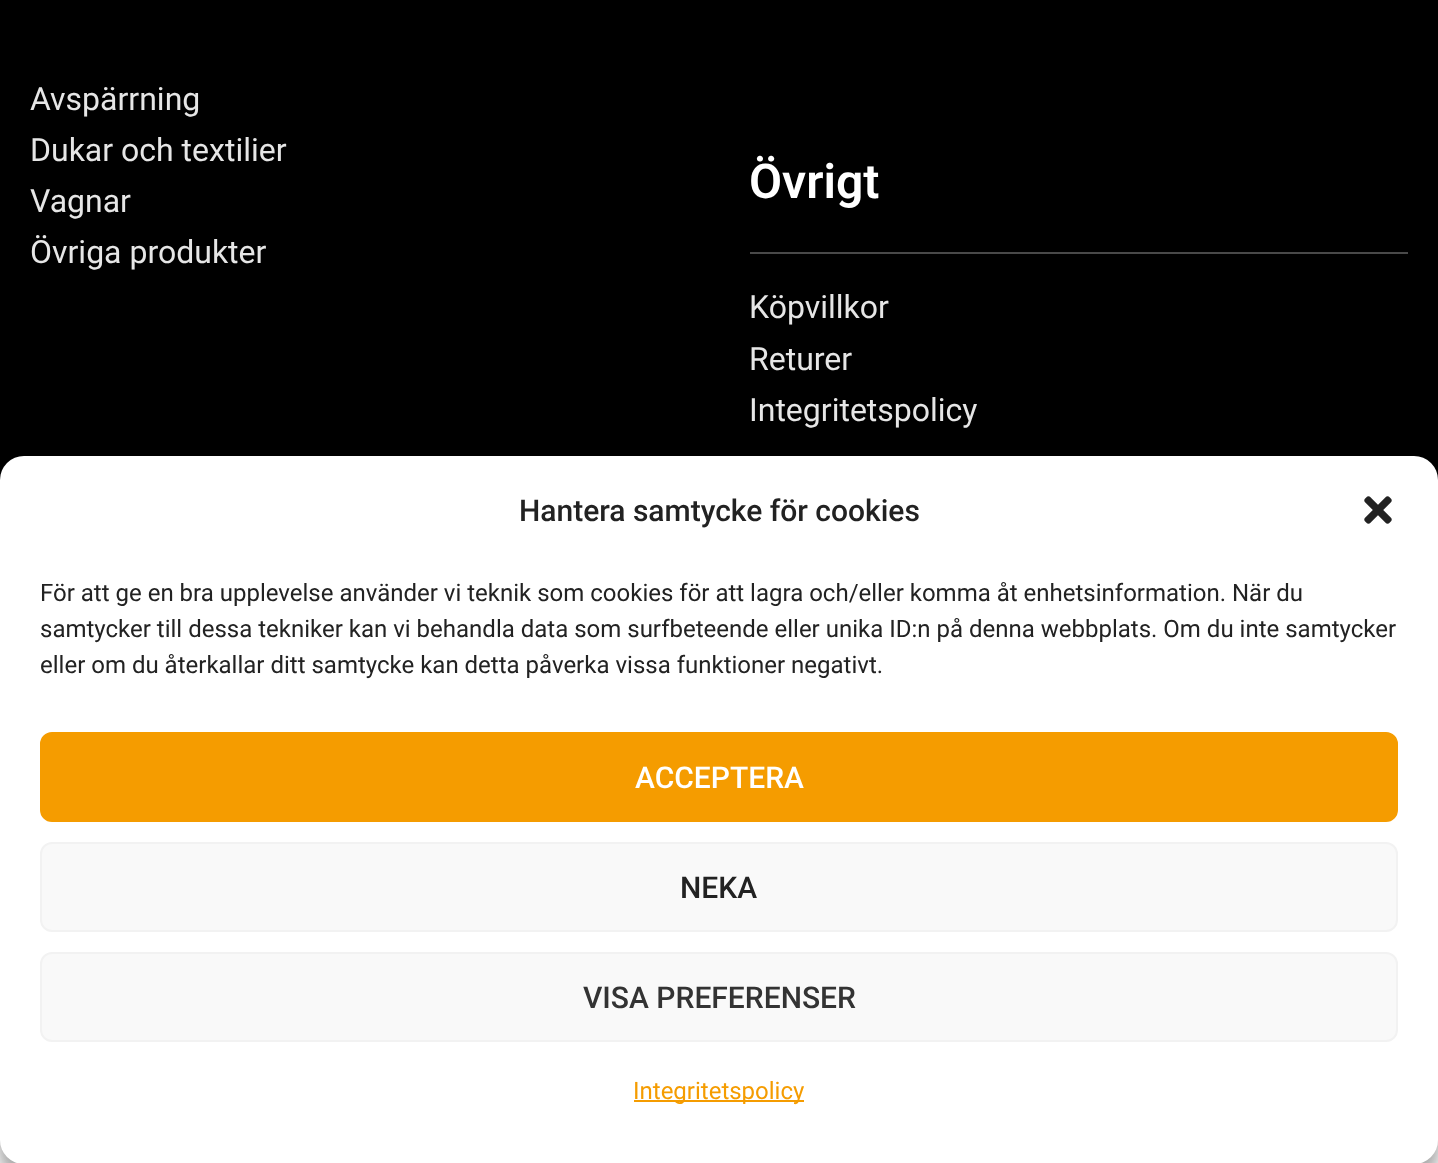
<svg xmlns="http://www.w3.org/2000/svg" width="1438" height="1163">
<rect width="100%" height="100%" fill="#fff"/>
<rect width="1438" height="480" fill="#000"/>
<text x="30" y="110" style="font-family:Roboto;font-size:32px;fill:#e6e6e6">Avspärrning</text>
<text x="30" y="161" style="font-family:Roboto;font-size:32px;fill:#e6e6e6">Dukar och textilier</text>
<text x="30" y="212" style="font-family:Roboto;font-size:32px;fill:#e6e6e6">Vagnar</text>
<text x="30" y="263" style="font-family:Roboto;font-size:32px;fill:#e6e6e6">Övriga produkter</text>
<text x="749" y="198" style="font-family:Roboto;font-size:48px;font-weight:600;fill:#fff">Övrigt</text>
<rect x="750" y="252" width="658" height="2" fill="#494949"/>
<text x="749" y="318" style="font-family:Roboto;font-size:32px;fill:#e6e6e6">Köpvillkor</text>
<text x="749" y="370" style="font-family:Roboto;font-size:32px;fill:#e6e6e6">Returer</text>
<text x="749" y="421" style="font-family:Roboto;font-size:32px;fill:#e6e6e6">Integritetspolicy</text>
<rect y="468" width="1438" height="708" rx="24" fill="#0000003b" filter="blur(6px)"/>
<rect y="476" width="1438" height="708" rx="24" fill="#00000030" filter="blur(20px)"/>
<rect y="456" width="1438" height="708" rx="24" fill="#fff"/>
<text x="519" y="521" style="font-family:Roboto;font-size:30px;font-weight:500;fill:#222">Hantera samtycke för cookies</text>
<image x="1364" y="496" width="28" height="28" href="media/1.png"/>
<text x="40" y="601" style="font-family:Roboto;font-size:24px;fill:#222">För att ge en bra upplevelse använder vi teknik som cookies för att lagra och/eller komma åt enhetsinformation. När du</text>
<text x="40" y="637" style="font-family:Roboto;font-size:24px;fill:#222">samtycker till dessa tekniker kan vi behandla data som surfbeteende eller unika ID:n på denna webbplats. Om du inte samtycker</text>
<text x="40" y="673" style="font-family:Roboto;font-size:24px;fill:#222">eller om du återkallar ditt samtycke kan detta påverka vissa funktioner negativt.</text>
<rect x="41" y="733" width="1356" height="88" rx="11" fill="#f59c00" stroke="#f59c00" stroke-width="2"/>
<text x="635" y="788" style="font-family:Roboto;font-size:30px;font-weight:500;fill:#fff">ACCEPTERA</text>
<rect x="41" y="843" width="1356" height="88" rx="11" fill="#f9f9f9" stroke="#f2f2f2" stroke-width="2"/>
<text x="680" y="898" style="font-family:Roboto;font-size:30px;font-weight:500;fill:#222">NEKA</text>
<rect x="41" y="953" width="1356" height="88" rx="11" fill="#f9f9f9" stroke="#f2f2f2" stroke-width="2"/>
<text x="583" y="1008" style="font-family:Roboto;font-size:30px;font-weight:500;fill:#333">VISA PREFERENSER</text>
<rect x="634" y="1100" width="170" height="2" fill="#f59c00"/>
<text x="633" y="1099" style="font-family:Roboto;font-size:24px;fill:#f59c00">Integritetspolicy</text>
</svg>
